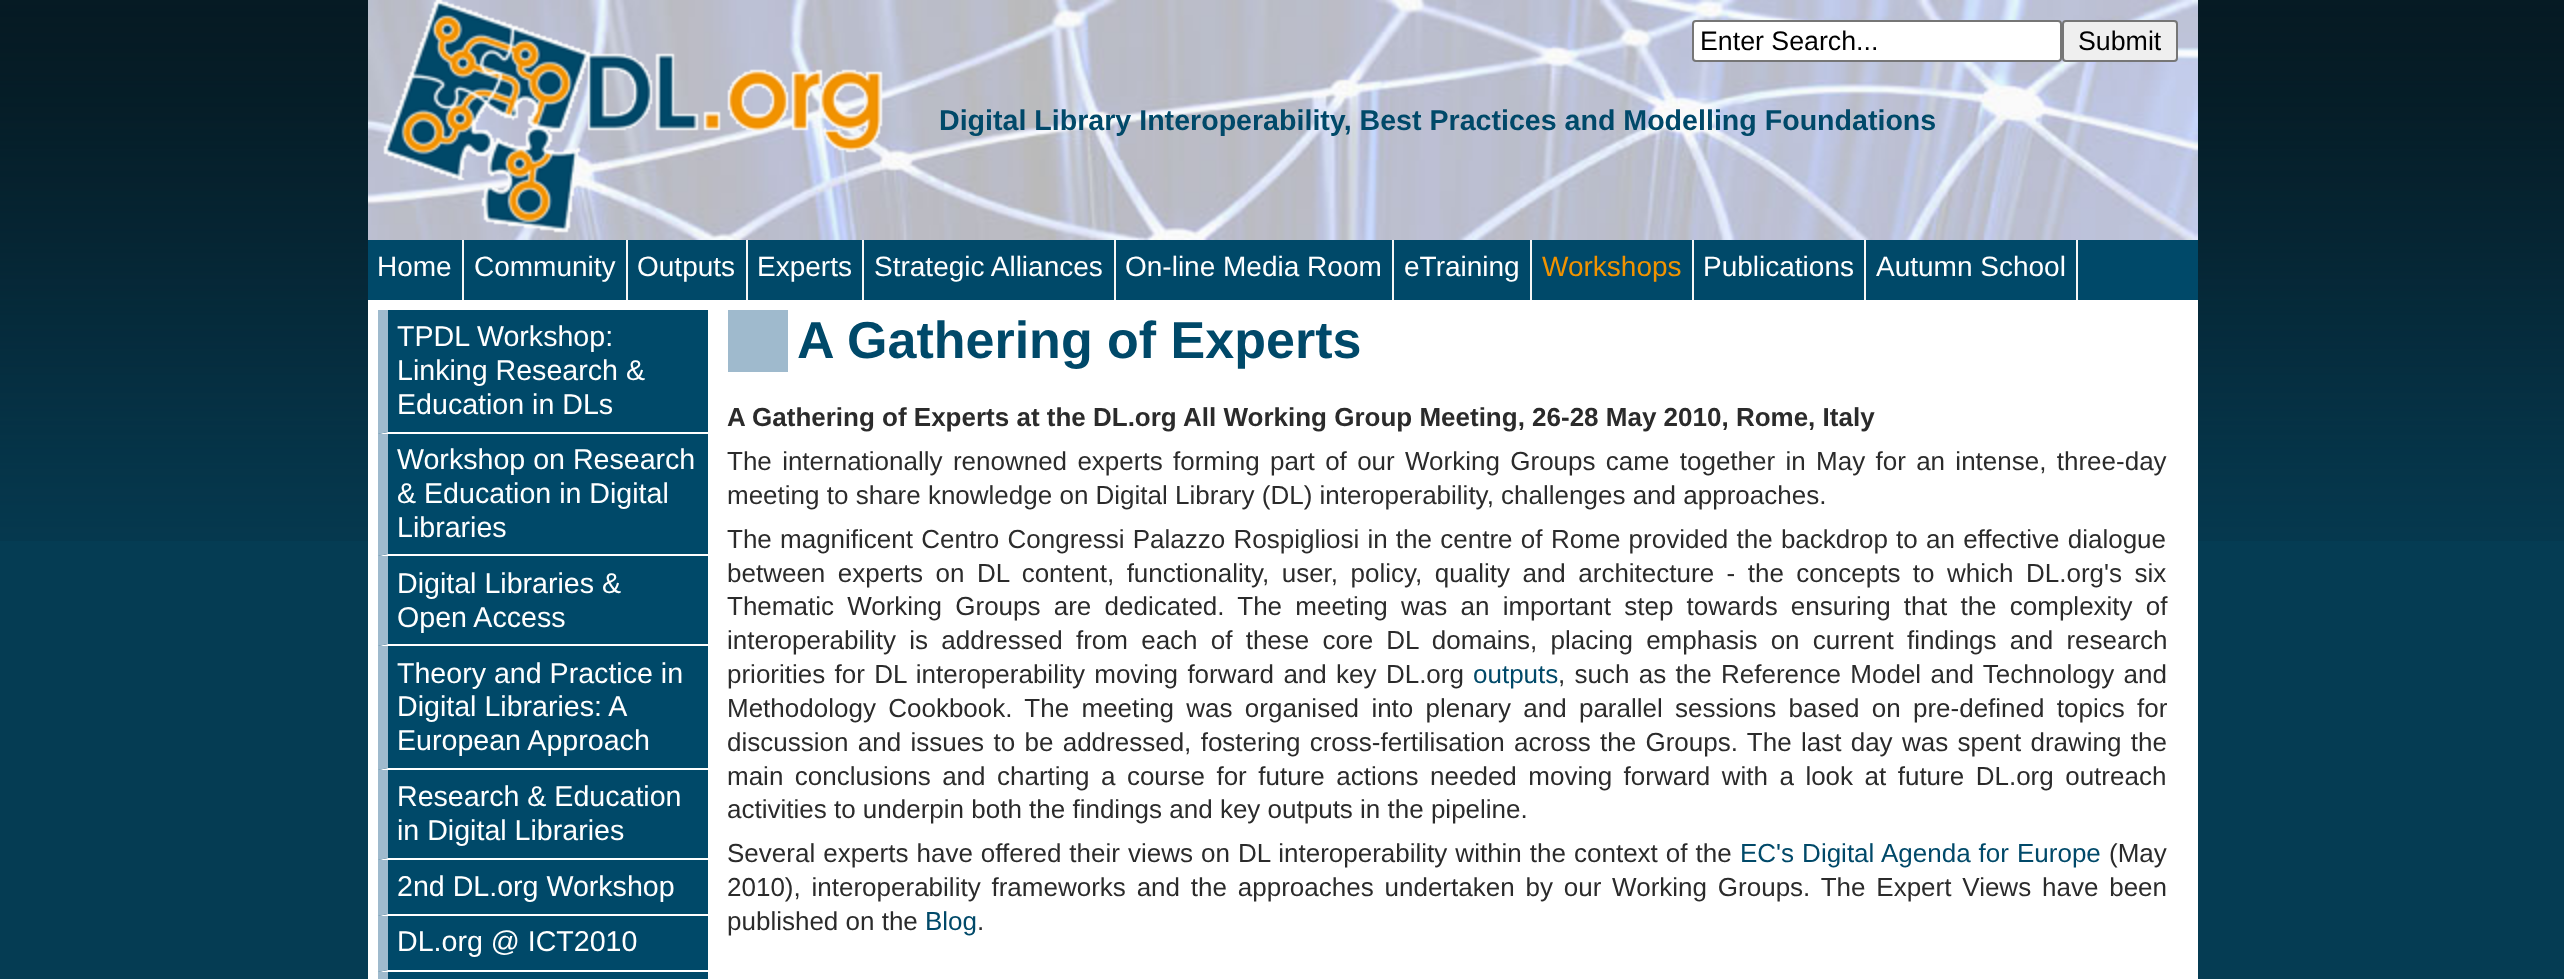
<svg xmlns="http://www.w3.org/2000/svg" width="2564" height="979">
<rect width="100%" height="100%" fill="#053c53"/>
<image x="0" y="0" width="2564" height="541" href="media/1.png"/>
<rect x="368" y="300" width="1830" height="679" fill="#fff"/>
<image x="368" y="0" width="1830" height="240" href="media/2.png"/>
<image x="383" y="0" width="500" height="233" href="media/3.png"/>
<rect x="1693" y="21" width="368" height="40" rx="3" fill="#fff" stroke="#767676" stroke-width="2"/>
<text x="1700" y="50" style="font-family:Liberation Sans;font-size:26.75px;fill:#000">Enter Search...</text>
<rect x="2063" y="21" width="114" height="40" rx="3" fill="#efefef" stroke="#767676" stroke-width="2"/>
<text x="2078" y="50" style="font-family:Liberation Sans;font-size:26.75px;fill:#000">Submit</text>
<text x="939" y="130" style="font-family:Liberation Sans;font-size:28.6px;font-weight:bold;fill:#004969">Digital Library Interoperability, Best Practices and Modelling Foundations</text>
<rect x="368" y="240" width="1830" height="60" fill="#004969"/>
<rect x="462" y="240" width="2" height="60" fill="#f6f6f6"/>
<text x="377" y="276" style="font-family:Liberation Sans;font-size:28px;fill:#fff">Home</text>
<rect x="626" y="240" width="2" height="60" fill="#f6f6f6"/>
<text x="474" y="276" style="font-family:Liberation Sans;font-size:28px;fill:#fff">Community</text>
<rect x="746" y="240" width="2" height="60" fill="#f6f6f6"/>
<text x="637" y="276" style="font-family:Liberation Sans;font-size:28px;fill:#fff">Outputs</text>
<rect x="862" y="240" width="2" height="60" fill="#f6f6f6"/>
<text x="757" y="276" style="font-family:Liberation Sans;font-size:28px;fill:#fff">Experts</text>
<rect x="1114" y="240" width="2" height="60" fill="#f6f6f6"/>
<text x="874" y="276" style="font-family:Liberation Sans;font-size:28px;fill:#fff">Strategic Alliances</text>
<rect x="1392" y="240" width="2" height="60" fill="#f6f6f6"/>
<text x="1125" y="276" style="font-family:Liberation Sans;font-size:28px;fill:#fff">On-line Media Room</text>
<rect x="1530" y="240" width="2" height="60" fill="#f6f6f6"/>
<text x="1404" y="276" style="font-family:Liberation Sans;font-size:28px;fill:#fff">eTraining</text>
<rect x="1692" y="240" width="2" height="60" fill="#f6f6f6"/>
<text x="1542" y="276" style="font-family:Liberation Sans;font-size:28px;fill:#f19300">Workshops</text>
<rect x="1864" y="240" width="2" height="60" fill="#f6f6f6"/>
<text x="1703" y="276" style="font-family:Liberation Sans;font-size:28px;fill:#fff">Publications</text>
<rect x="2076" y="240" width="2" height="60" fill="#f6f6f6"/>
<text x="1876" y="276" style="font-family:Liberation Sans;font-size:28px;fill:#fff">Autumn School</text>
<rect x="378" y="310" width="330" height="662" fill="#004969"/>
<path d="M708 434h-330l10-2h320z" fill="#fff"/>
<path d="M378 434v-124h10v122z" fill="#9fbacd"/>
<text x="397" y="346" style="font-family:Liberation Sans;font-size:28.6px;fill:#fff">TPDL Workshop:</text>
<text x="397" y="380" style="font-family:Liberation Sans;font-size:28.6px;fill:#fff">Linking Research &amp;</text>
<text x="397" y="414" style="font-family:Liberation Sans;font-size:28.6px;fill:#fff">Education in DLs</text>
<path d="M708 556h-330l10-2h320z" fill="#fff"/>
<path d="M378 556v-122h10v120z" fill="#9fbacd"/>
<text x="397" y="469" style="font-family:Liberation Sans;font-size:28.6px;fill:#fff">Workshop on Research</text>
<text x="397" y="503" style="font-family:Liberation Sans;font-size:28.6px;fill:#fff">&amp; Education in Digital</text>
<text x="397" y="537" style="font-family:Liberation Sans;font-size:28.6px;fill:#fff">Libraries</text>
<path d="M708 646h-330l10-2h320z" fill="#fff"/>
<path d="M378 646v-90h10v88z" fill="#9fbacd"/>
<text x="397" y="593" style="font-family:Liberation Sans;font-size:28.6px;fill:#fff">Digital Libraries &amp;</text>
<text x="397" y="627" style="font-family:Liberation Sans;font-size:28.6px;fill:#fff">Open Access</text>
<path d="M708 770h-330l10-2h320z" fill="#fff"/>
<path d="M378 770v-124h10v122z" fill="#9fbacd"/>
<text x="397" y="683" style="font-family:Liberation Sans;font-size:28.6px;fill:#fff">Theory and Practice in</text>
<text x="397" y="716" style="font-family:Liberation Sans;font-size:28.6px;fill:#fff">Digital Libraries: A</text>
<text x="397" y="750" style="font-family:Liberation Sans;font-size:28.6px;fill:#fff">European Approach</text>
<path d="M708 860h-330l10-2h320z" fill="#fff"/>
<path d="M378 860v-90h10v88z" fill="#9fbacd"/>
<text x="397" y="806" style="font-family:Liberation Sans;font-size:28.6px;fill:#fff">Research &amp; Education</text>
<text x="397" y="840" style="font-family:Liberation Sans;font-size:28.6px;fill:#fff">in Digital Libraries</text>
<path d="M708 916h-330l10-2h320z" fill="#fff"/>
<path d="M378 916v-56h10v54z" fill="#9fbacd"/>
<text x="397" y="896" style="font-family:Liberation Sans;font-size:28.6px;fill:#fff">2nd DL.org Workshop</text>
<path d="M708 972h-330l10-2h320z" fill="#fff"/>
<path d="M378 972v-56h10v54z" fill="#9fbacd"/>
<text x="397" y="951" style="font-family:Liberation Sans;font-size:28.6px;fill:#fff">DL.org @ ICT2010</text>
<rect x="388" y="972" width="320" height="7" fill="#004969"/>
<path d="M378 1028v-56h10v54z" fill="#9fbacd"/>
<rect x="728" y="310" width="60" height="62" fill="#9fbacd"/>
<text x="797" y="358" style="font-family:Liberation Sans;font-size:52px;font-weight:bold;fill:#004969">A Gathering of Experts</text>
<text x="727" y="426" style="font-family:Liberation Sans;font-size:26px;font-weight:bold;fill:#2b2b2b">A Gathering of Experts at the DL.org All Working Group Meeting, 26-28 May 2010, Rome, Italy</text>
<text x="727" y="470" word-spacing="3.1" style="font-family:Liberation Sans;font-size:26px;fill:#2b2b2b">The internationally renowned experts forming part of our Working Groups came together in May for an intense, three-day</text>
<text x="727" y="504" style="font-family:Liberation Sans;font-size:26px;fill:#2b2b2b">meeting to share knowledge on Digital Library (DL) interoperability, challenges and approaches.</text>
<text x="727" y="548" word-spacing="1" style="font-family:Liberation Sans;font-size:26px;fill:#2b2b2b">The magnificent Centro Congressi Palazzo Rospigliosi in the centre of</text>
<text x="1551" y="548" word-spacing="1" style="font-family:Liberation Sans;font-size:26px;fill:#2b2b2b">Rome provided the backdrop to an effective dialogue</text>
<text x="727" y="582" word-spacing="5.25" style="font-family:Liberation Sans;font-size:26px;fill:#2b2b2b">between experts on DL content, functionality, user, policy, quality and architecture - the concepts to which DL.org's six</text>
<text x="727" y="615" word-spacing="6" style="font-family:Liberation Sans;font-size:26px;fill:#2b2b2b">Thematic Working Groups are dedicated. The meeting was an important step towards ensuring that the complexity of</text>
<text x="727" y="649" word-spacing="6" style="font-family:Liberation Sans;font-size:26px;fill:#2b2b2b">interoperability is addressed from each of these core DL domains, placing emphasis on current findings and research</text>
<text x="727" y="683" word-spacing="2.1" style="font-family:Liberation Sans;font-size:26px;fill:#2b2b2b">priorities for DL interoperability moving forward and key DL.org</text>
<text x="1473" y="683" style="font-family:Liberation Sans;font-size:26px;fill:#004969">outputs</text>
<text x="1558" y="683" word-spacing="2.1" style="font-family:Liberation Sans;font-size:26px;fill:#2b2b2b">, such as the Reference Model and Technology and</text>
<text x="727" y="717" word-spacing="5.1" style="font-family:Liberation Sans;font-size:26px;fill:#2b2b2b">Methodology Cookbook. The meeting was organised into plenary and parallel sessions based on pre-defined topics for</text>
<text x="727" y="751" word-spacing="2.1" style="font-family:Liberation Sans;font-size:26px;fill:#2b2b2b">discussion and issues to be addressed, fostering cross-fertilisation across the Groups. The last day was spent drawing the</text>
<text x="727" y="785" word-spacing="4.25" style="font-family:Liberation Sans;font-size:26px;fill:#2b2b2b">main conclusions and charting a course for future actions needed moving forward with a look at future DL.org outreach</text>
<text x="727" y="818" style="font-family:Liberation Sans;font-size:26px;fill:#2b2b2b">activities to underpin both the findings and key outputs in the pipeline.</text>
<text x="727" y="862" word-spacing="0.8" style="font-family:Liberation Sans;font-size:26px;fill:#2b2b2b">Several experts have offered their views on DL interoperability within the context of the</text>
<text x="1740" y="862" word-spacing="0.8" style="font-family:Liberation Sans;font-size:26px;fill:#004969">EC's Digital Agenda for Europe</text>
<text x="2109" y="862" style="font-family:Liberation Sans;font-size:26px;fill:#2b2b2b">(May</text>
<text x="727" y="896" word-spacing="3.6" style="font-family:Liberation Sans;font-size:26px;fill:#2b2b2b">2010), interoperability frameworks and the approaches undertaken by our Working Groups. The Expert Views have been</text>
<text x="727" y="930" style="font-family:Liberation Sans;font-size:26px;fill:#2b2b2b">published on the</text>
<text x="925" y="930" style="font-family:Liberation Sans;font-size:26px;fill:#004969">Blog</text>
<text x="977" y="930" style="font-family:Liberation Sans;font-size:26px;fill:#2b2b2b">.</text>
</svg>
